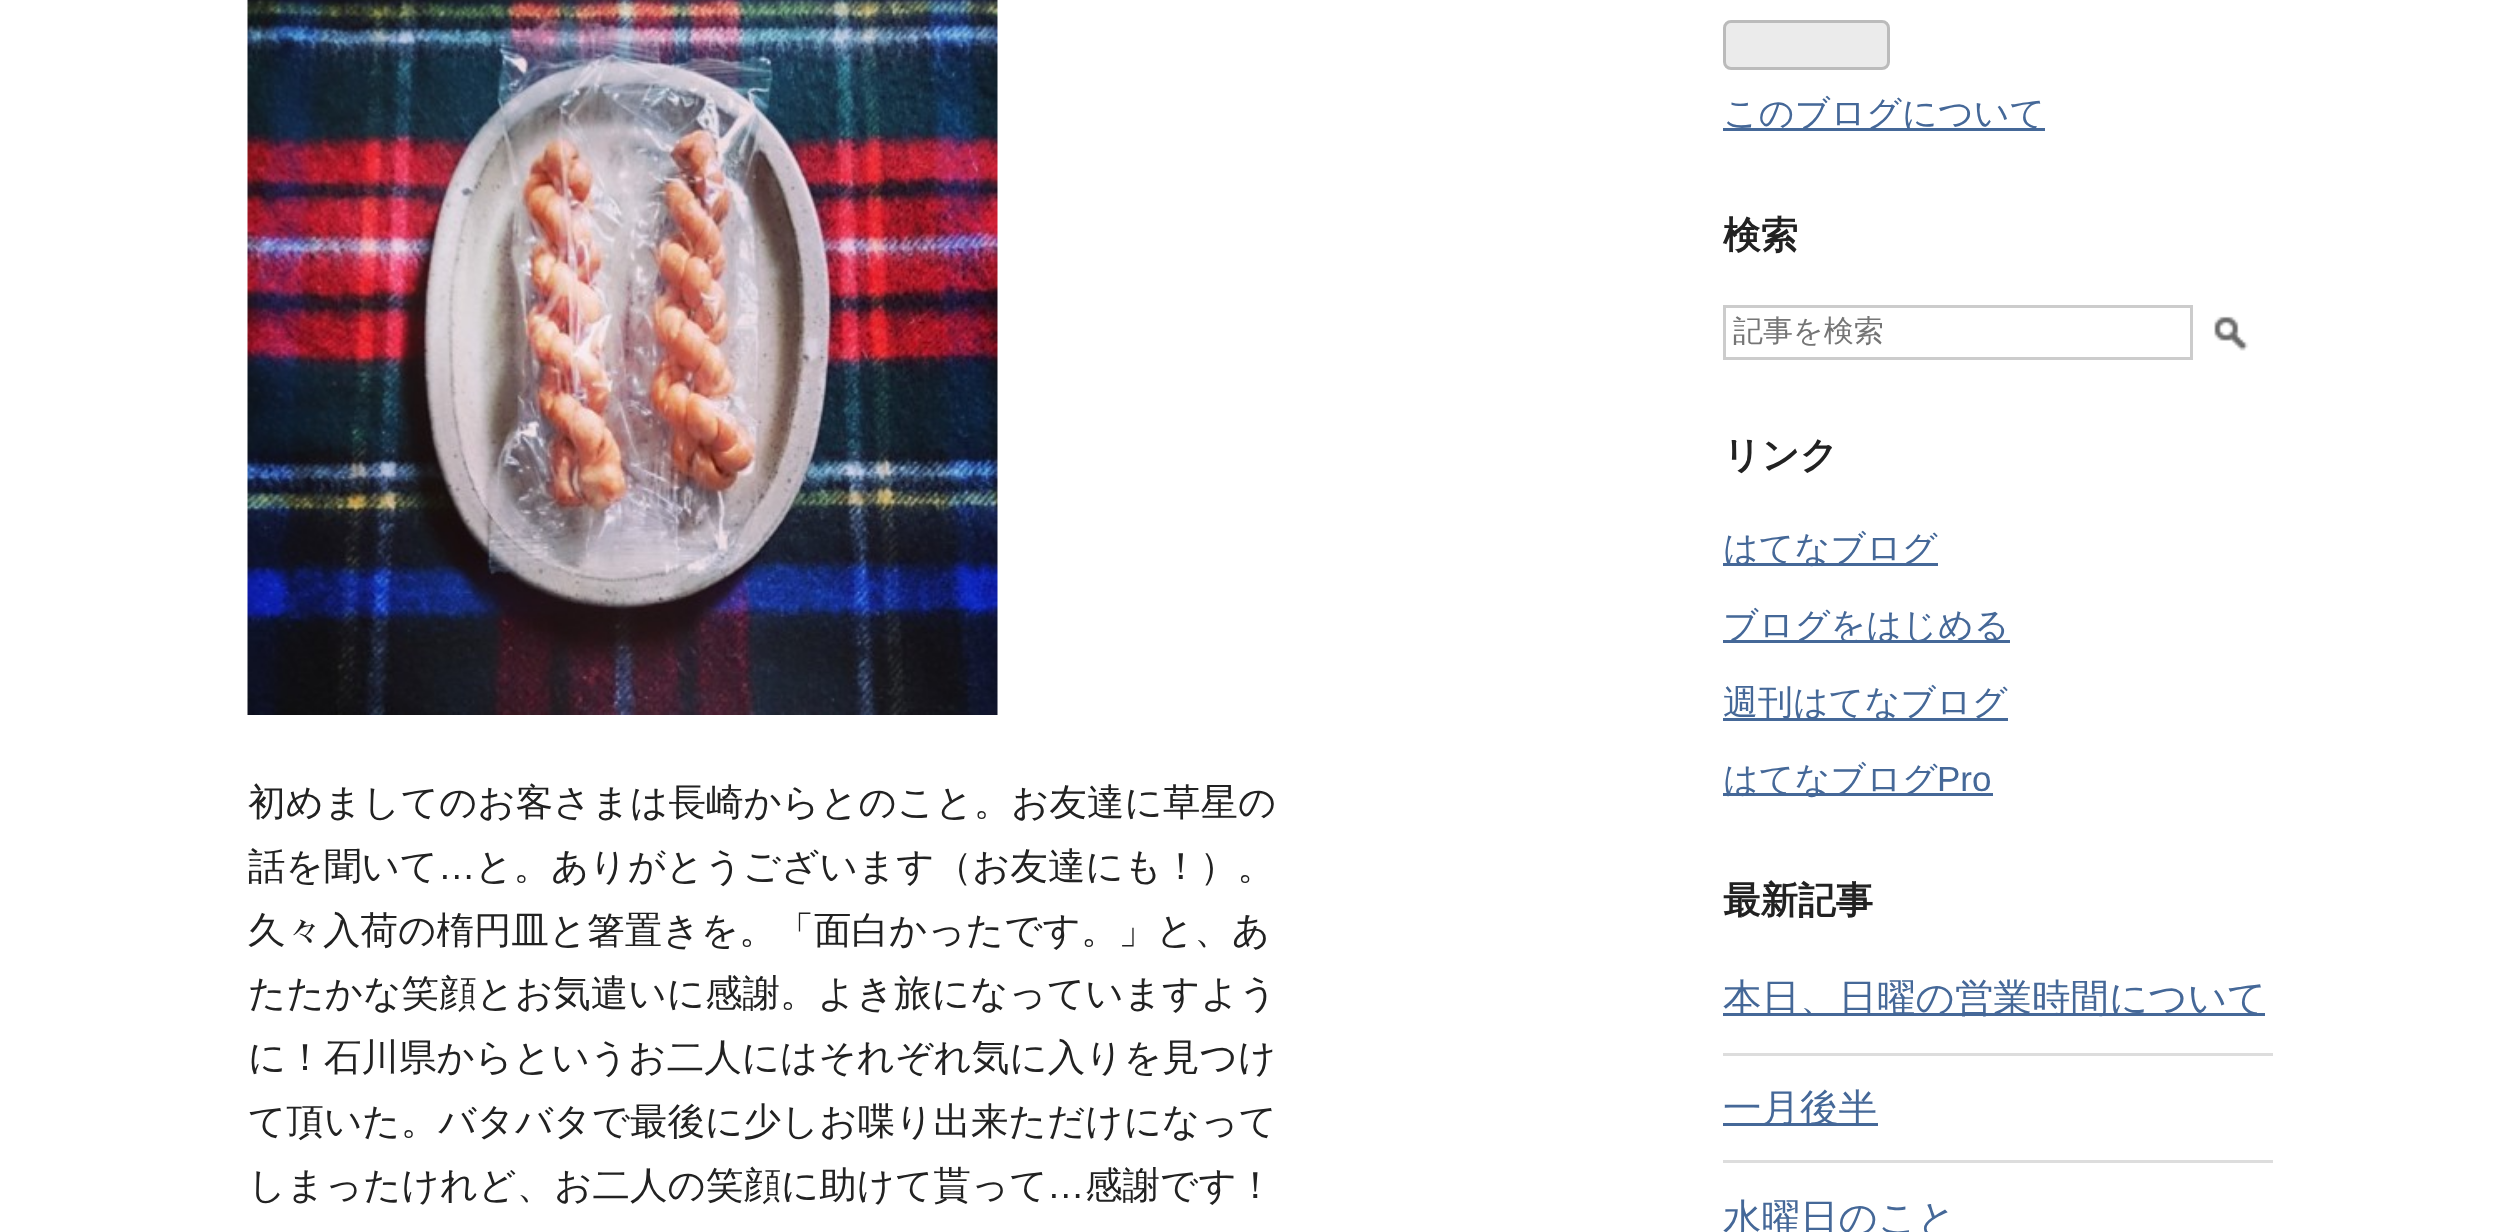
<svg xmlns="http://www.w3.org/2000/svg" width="2520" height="1232">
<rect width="100%" height="100%" fill="#fff"/>
<image x="247" y="0" width="751" height="715" href="media/1.png"/>
<text x="248" y="815" style="font-family:WenQuanYi Zen Hei;font-size:37.5px;font-weight:500;fill:#222">初めましてのお客さまは長崎からとのこと。お友達に草星の</text>
<text x="248" y="879" style="font-family:WenQuanYi Zen Hei;font-size:37.5px;font-weight:500;fill:#222">話を聞いて</text>
<text x="438" y="879" style="font-family:Liberation Sans;font-size:37.5px;fill:#222">…</text>
<text x="475" y="879" style="font-family:WenQuanYi Zen Hei;font-size:37.5px;font-weight:500;fill:#222">と。ありがとうございます（お友達にも！）。</text>
<text x="248" y="943" style="font-family:WenQuanYi Zen Hei;font-size:37.5px;font-weight:500;fill:#222">久々入荷の楕円皿と箸置きを。「面白かったです。」と、あ</text>
<text x="248" y="1006" style="font-family:WenQuanYi Zen Hei;font-size:37.5px;font-weight:500;fill:#222">たたかな笑顔とお気遣いに感謝。よき旅になっていますよう</text>
<text x="248" y="1070" style="font-family:WenQuanYi Zen Hei;font-size:37.5px;font-weight:500;fill:#222">に！石川県からというお二人にはそれぞれ気に入りを見つけ</text>
<text x="248" y="1134" style="font-family:WenQuanYi Zen Hei;font-size:37.5px;font-weight:500;fill:#222">て頂いた。バタバタで最後に少しお喋り出来ただけになって</text>
<text x="248" y="1198" style="font-family:WenQuanYi Zen Hei;font-size:37.5px;font-weight:500;fill:#222">しまったけれど、お二人の笑顔に助けて貰って</text>
<text x="1047" y="1198" style="font-family:Liberation Sans;font-size:37.5px;fill:#222">…</text>
<text x="1085" y="1198" style="font-family:WenQuanYi Zen Hei;font-size:37.5px;font-weight:500;fill:#222">感謝です！</text>
<rect x="1724.5" y="21.5" width="164" height="47" rx="6.5" fill="#ebebeb" stroke="#bbb" stroke-width="3"/>
<rect x="1723" y="128" width="322" height="3" fill="#456898"/>
<text x="1723" y="125" style="font-family:WenQuanYi Zen Hei;font-size:35px;font-weight:500;fill:#456898">このブログについて</text>
<text x="1723" y="248" style="font-family:WenQuanYi Zen Hei;font-size:37.5px;font-weight:bold;fill:#222">検索</text>
<rect x="1724.5" y="306.5" width="467" height="52" fill="none" stroke="#ccc" stroke-width="3"/>
<text x="1733" y="341" style="font-family:WenQuanYi Zen Hei;font-size:30px;font-weight:500;fill:#757575">記事を検索</text>
<image x="2214" y="316" width="35" height="35" href="media/2.png"/>
<text x="1723" y="468" style="font-family:WenQuanYi Zen Hei;font-size:37.5px;font-weight:bold;fill:#222">リンク</text>
<rect x="1723" y="563" width="215" height="3" fill="#456898"/>
<text x="1723" y="560" style="font-family:WenQuanYi Zen Hei;font-size:35px;font-weight:500;fill:#456898">はてなブログ</text>
<rect x="1723" y="640" width="287" height="3" fill="#456898"/>
<text x="1723" y="637" style="font-family:WenQuanYi Zen Hei;font-size:35px;font-weight:500;fill:#456898">ブログをはじめる</text>
<rect x="1723" y="718" width="285" height="3" fill="#456898"/>
<text x="1723" y="714" style="font-family:WenQuanYi Zen Hei;font-size:35px;font-weight:500;fill:#456898">週刊はてなブログ</text>
<rect x="1723" y="793" width="270" height="3" fill="#456898"/>
<text x="1723" y="791" style="font-family:WenQuanYi Zen Hei;font-size:35px;font-weight:500;fill:#456898">はてなブログ</text>
<text x="1937" y="791" style="font-family:Liberation Sans;font-size:35px;fill:#456898">Pro</text>
<text x="1723" y="913" style="font-family:WenQuanYi Zen Hei;font-size:37.5px;font-weight:bold;fill:#222">最新記事</text>
<rect x="1723" y="1053" width="550" height="3" fill="#ddd"/>
<rect x="1723" y="1013" width="542" height="3" fill="#456898"/>
<text x="1723" y="1011" style="font-family:WenQuanYi Zen Hei;font-size:38.5px;font-weight:500;fill:#456898">本日、日曜の営業時間について</text>
<rect x="1723" y="1160" width="550" height="3" fill="#ddd"/>
<rect x="1723" y="1123" width="155" height="3" fill="#456898"/>
<text x="1723" y="1121" style="font-family:WenQuanYi Zen Hei;font-size:38.5px;font-weight:500;fill:#456898">一月後半</text>
<text x="1723" y="1231" style="font-family:WenQuanYi Zen Hei;font-size:38.5px;font-weight:500;fill:#456898">水曜日のこと</text>
</svg>
